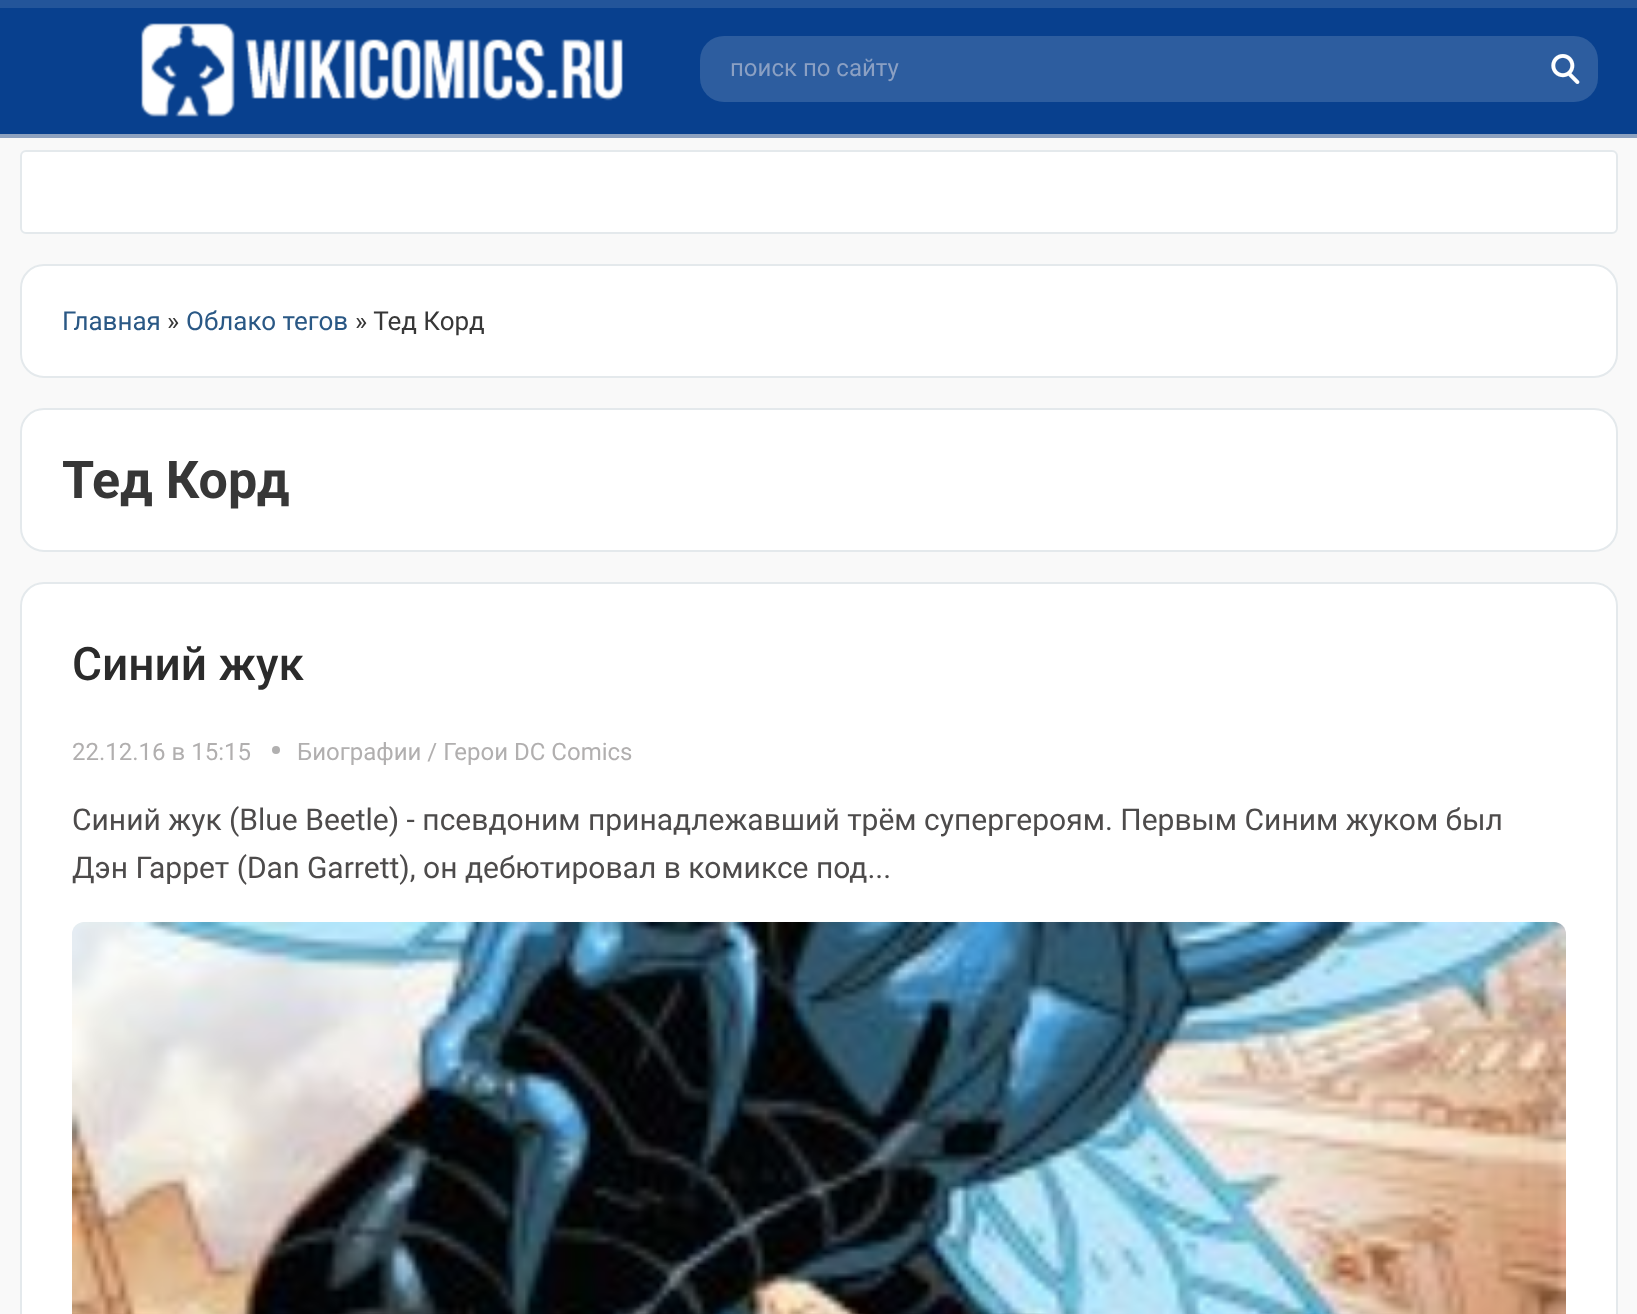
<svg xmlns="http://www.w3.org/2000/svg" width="1637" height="1314">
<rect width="100%" height="100%" fill="#f9f9f9"/>
<rect y="8" width="1637" height="126" fill="#08408e"/>
<rect width="1637" height="8" fill="#23559a"/>
<rect y="134" width="1637" height="4" fill="#8da1bf"/>
<image x="141" y="23" width="482" height="94" href="media/1.png"/>
<rect x="700" y="36" width="898" height="66" rx="24" fill="#2d5d9f"/>
<text x="730" y="76" style="font-family:Roboto;font-size:24px;fill:#8ba0c3">поиск по сайту</text>
<image x="1551" y="54" width="29" height="30" href="media/2.png"/>
<rect x="21" y="151" width="1596" height="82" rx="5" fill="#fff" stroke="#e4e9ec" stroke-width="2"/>
<rect x="21" y="265" width="1596" height="112" rx="23" fill="#fff" stroke="#e4e9ec" stroke-width="2"/>
<text x="62" y="330" style="font-family:Roboto;font-size:26px;fill:#2a5885">Главная</text>
<text x="167" y="330" style="font-family:Roboto;font-size:26px;fill:#373737">»</text>
<text x="186" y="330" style="font-family:Roboto;font-size:26px;fill:#2a5885">Облако тегов</text>
<text x="355" y="330" style="font-family:Roboto;font-size:26px;fill:#373737">» Тед Корд</text>
<rect x="21" y="409" width="1596" height="142" rx="23" fill="#fff" stroke="#e4e9ec" stroke-width="2"/>
<text x="62" y="498" style="font-family:Roboto;font-size:52px;font-weight:bold;fill:#373737">Тед Корд</text>
<rect x="21" y="583" width="1596" height="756" rx="23" fill="#fff" stroke="#e4e9ec" stroke-width="2"/>
<text x="72" y="680" style="font-family:Roboto;font-size:46px;font-weight:500;fill:#2b2b2b">Синий жук</text>
<text x="72" y="760" style="font-family:Roboto;font-size:24px;fill:#b1afaf">22.12.16 в 15:15</text>
<circle cx="276" cy="750" r="4" fill="#b1b0b0"/>
<text x="297" y="760" style="font-family:Roboto;font-size:24px;fill:#b1afaf">Биографии / Герои DC Comics</text>
<text x="72" y="830" style="font-family:Roboto;font-size:30px;fill:#4d4b4b">Синий жук (Blue Beetle) - псевдоним принадлежавший трём супергероям. Первым Синим жуком был</text>
<text x="72" y="878" style="font-family:Roboto;font-size:30px;fill:#4d4b4b">Дэн Гаррет (Dan Garrett), он дебютировал в комиксе под...</text>
<image x="72" y="922" width="1494" height="392" href="media/3.png"/>
</svg>
